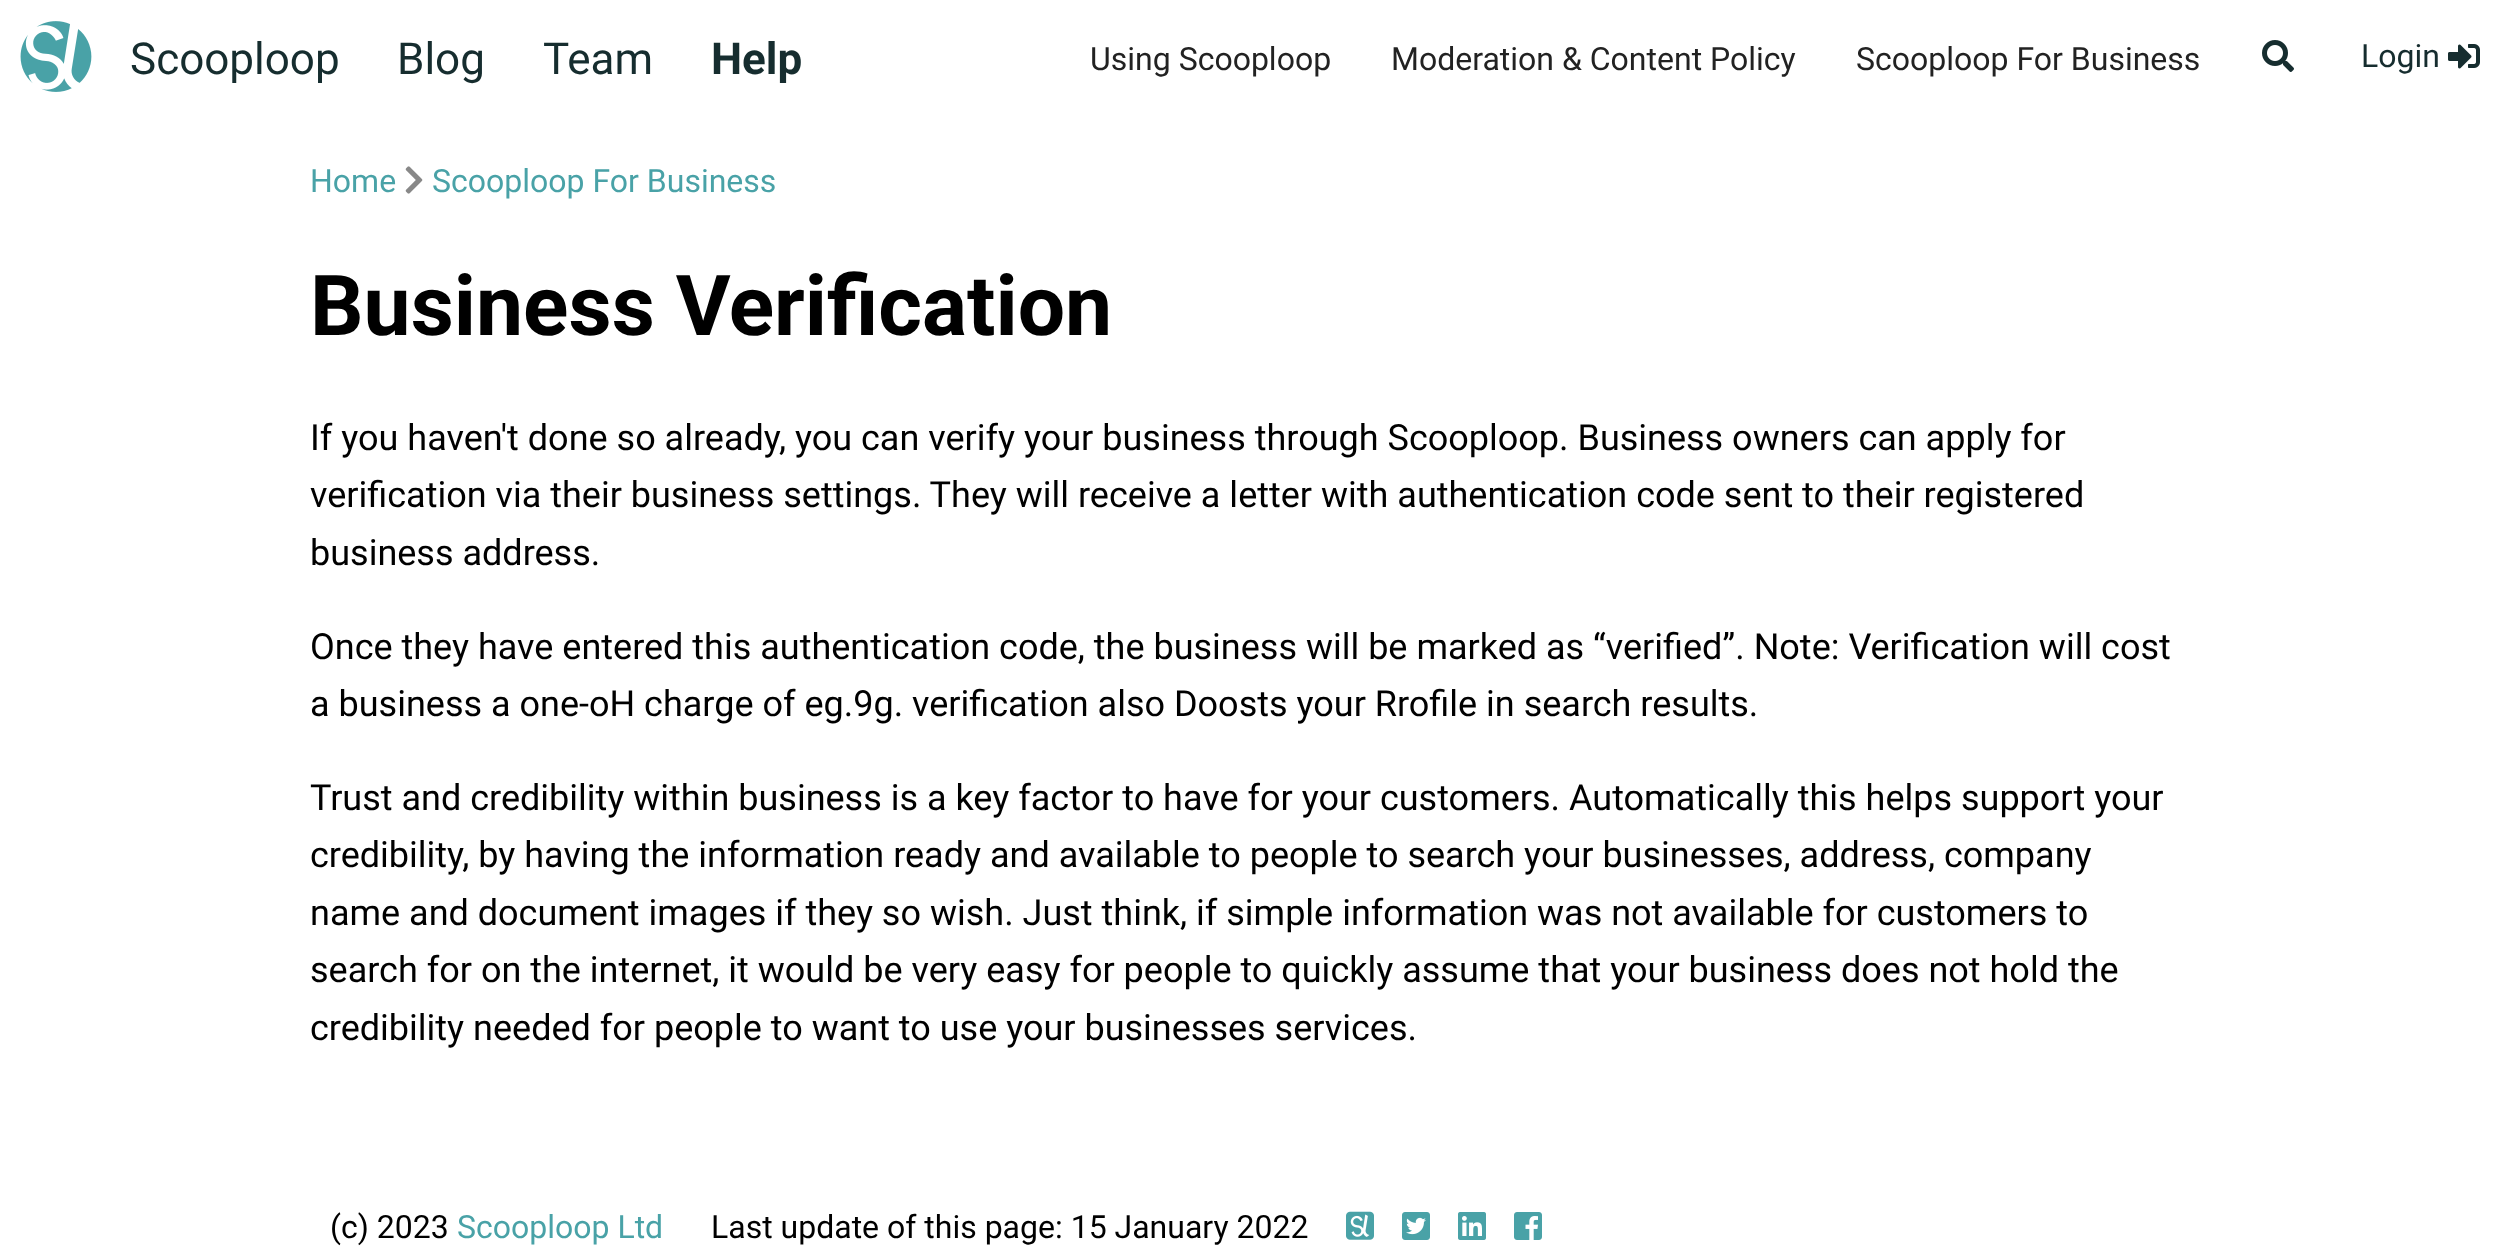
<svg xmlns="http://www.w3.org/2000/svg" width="2500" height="1260">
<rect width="100%" height="100%" fill="#fff"/>
<image x="20" y="21" width="72" height="71" href="media/1.png"/>
<text x="130" y="74" style="font-family:Roboto;font-size:44px;fill:#162d2f">Scooploop</text>
<text x="397" y="74" style="font-family:Roboto;font-size:44px;fill:#162d2f">Blog</text>
<text x="543" y="74" style="font-family:Roboto;font-size:44px;fill:#162d2f">Team</text>
<text x="711" y="74" style="font-family:Roboto;font-size:44px;font-weight:bold;fill:#162d2f">Help</text>
<image x="2262" y="40" width="32" height="32" href="media/2.png"/>
<text x="2361" y="67" style="font-family:Roboto;font-size:32px;fill:#162d2f">Login</text>
<image x="2448" y="44" width="32" height="25" href="media/3.png"/>
<text x="1090" y="70" style="font-family:Roboto;font-size:32px;fill:#222">Using Scooploop</text>
<text x="1391" y="70" style="font-family:Roboto;font-size:32px;fill:#222">Moderation &amp; Content Policy</text>
<text x="1856" y="70" style="font-family:Roboto;font-size:32px;fill:#222">Scooploop For Business</text>
<text x="310" y="192" style="font-family:Roboto;font-size:32px;fill:#49a2a7">Home</text>
<image x="405" y="166" width="18" height="28" href="media/4.png"/>
<text x="432" y="192" style="font-family:Roboto;font-size:32px;fill:#49a2a7">Scooploop For Business</text>
<text x="310" y="335" style="font-family:Roboto;font-size:84px;font-weight:bold;fill:#000">Business Verification</text>
<text x="310" y="450" style="font-family:Roboto;font-size:36px;fill:#000">If you haven't done so already, you can verify your business through Scooploop. Business owners can apply for</text>
<text x="310" y="507" style="font-family:Roboto;font-size:36px;fill:#000">verification via their business settings. They will receive a letter with authentication code sent to their registered</text>
<text x="310" y="565" style="font-family:Roboto;font-size:36px;fill:#000">business address.</text>
<text x="310" y="659" style="font-family:Roboto;font-size:36px;fill:#000">Once they have entered this authentication code, the business will be marked as “verified”. Note: Verification will cost</text>
<text x="310" y="716" style="font-family:Roboto;font-size:36px;fill:#000">a business a one-oH charge of eg.9g. verification also Doosts your Rrofile in search results.</text>
<text x="310" y="810" style="font-family:Roboto;font-size:36px;fill:#000">Trust and credibility within business is a key factor to have for your customers. Automatically this helps support your</text>
<text x="310" y="867" style="font-family:Roboto;font-size:36px;fill:#000">credibility, by having the information ready and available to people to search your businesses, address, company</text>
<text x="310" y="925" style="font-family:Roboto;font-size:36px;fill:#000">name and document images if they so wish. Just think, if simple information was not available for customers to</text>
<text x="310" y="982" style="font-family:Roboto;font-size:36px;fill:#000">search for on the internet, it would be very easy for people to quickly assume that your business does not hold the</text>
<text x="310" y="1040" style="font-family:Roboto;font-size:36px;fill:#000">credibility needed for people to want to use your businesses services.</text>
<text x="330" y="1238" style="font-family:Roboto;font-size:32px;fill:#000">(c) 2023</text>
<text x="457" y="1238" style="font-family:Roboto;font-size:32px;fill:#49a2a7">Scooploop Ltd</text>
<text x="711" y="1238" style="font-family:Roboto;font-size:32px;fill:#000">Last update of this page: 15 January 2022</text>
<image x="1346" y="1211" width="28" height="29" href="media/5.png"/>
<image x="1402" y="1212" width="28" height="28" href="media/6.png"/>
<image x="1458" y="1212" width="28" height="28" href="media/7.png"/>
<image x="1514" y="1212" width="28" height="28" href="media/8.png"/>
</svg>
